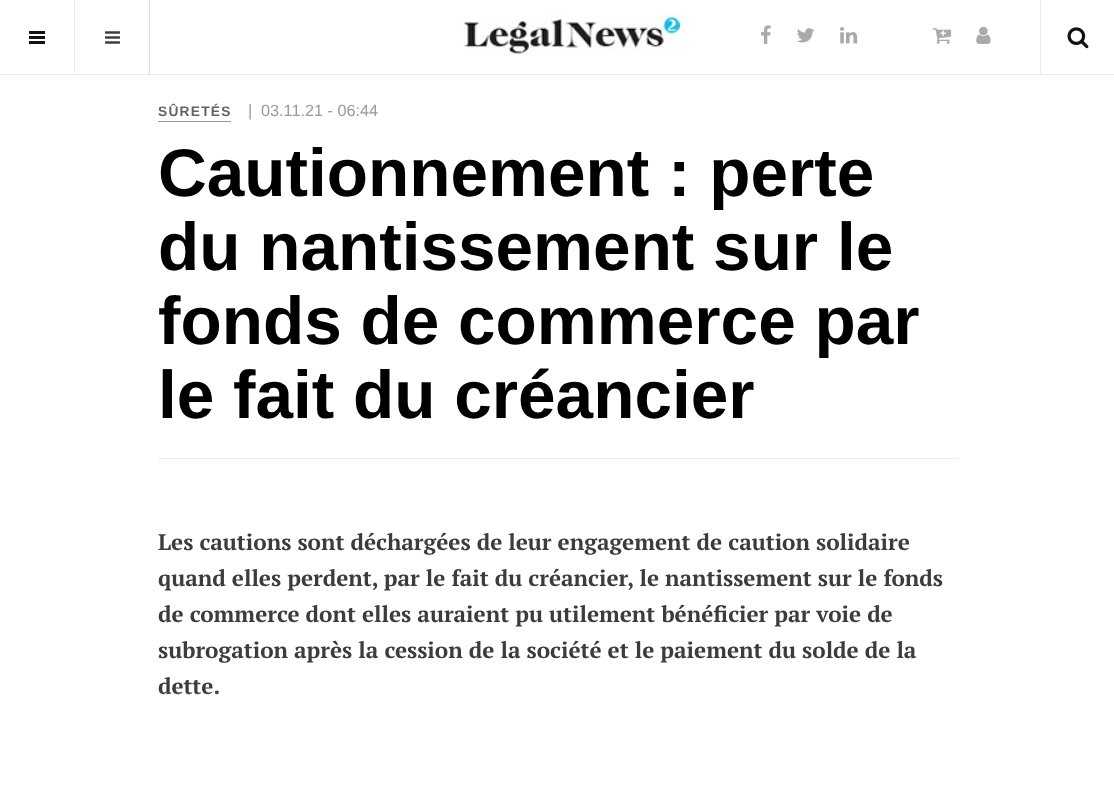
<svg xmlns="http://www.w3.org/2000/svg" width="1114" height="807">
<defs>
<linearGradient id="g1" gradientUnits="userSpaceOnUse" x1="558" y1="689" x2="558" y2="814"><stop offset="0" stop-color="#fff" stop-opacity="0"/><stop offset="0.7" stop-color="#fff"/></linearGradient>
</defs>
<rect width="100%" height="100%" fill="#fff"/>
<rect y="74" width="1114" height="1" fill="#eaeaea"/>
<rect x="74" width="1" height="73" fill="#eaeaea"/>
<rect x="29" y="36" width="16" height="3" fill="#111"/>
<rect x="29" y="31" width="16" height="3" fill="#111"/>
<rect x="29" y="41" width="16" height="3" fill="#111"/>
<image x="463" y="12" width="217" height="43" href="media/1.png"/>
<image x="761" y="25" width="10" height="19" href="media/2.png"/>
<image x="797" y="28" width="17" height="15" href="media/3.png"/>
<image x="840" y="27" width="18" height="17" href="media/4.png"/>
<image x="932" y="28" width="20" height="16" href="media/5.png"/>
<image x="976" y="26" width="15" height="18" href="media/6.png"/>
<rect x="1040" width="1" height="74" fill="#eaeaea"/>
<image x="1067" y="27" width="22" height="22" href="media/7.png"/>
<rect x="149" width="1" height="75" fill="#ddd"/>
<image x="105" y="31" width="15" height="13" href="media/8.png"/>
<text x="158" y="116" style="font-family:Liberation Sans;font-size:13.75px;font-weight:bold;letter-spacing:1.25px;fill:#626262">SÛRETÉS</text>
<rect x="158" y="121" width="73" height="1" fill="#999"/>
<text x="248" y="116" style="font-family:Liberation Sans;font-size:16.25px;fill:#999">|</text>
<text x="261" y="116" style="font-family:Liberation Sans;font-size:16.25px;fill:#999">03.11.21 - 06:44</text>
<rect x="158" y="458" width="800" height="1" fill="#eaeaea"/>
<text x="158" y="196" style="font-family:Liberation Sans;font-size:67.5px;font-weight:bold;fill:#000">Cautionnement : perte</text>
<text x="158" y="270" style="font-family:Liberation Sans;font-size:67.5px;font-weight:bold;fill:#000">du nantissement sur le</text>
<text x="158" y="344" style="font-family:Liberation Sans;font-size:67.5px;font-weight:bold;fill:#000">fonds de commerce par</text>
<text x="158" y="418" style="font-family:Liberation Sans;font-size:67.5px;font-weight:bold;fill:#000">le fait du créancier</text>
<text x="158" y="550" style="font-family:PT Serif;font-size:22.5px;font-weight:bold;fill:#3c3c3c">Les cautions sont déchargées de leur engagement de caution solidaire</text>
<text x="158" y="586" style="font-family:PT Serif;font-size:22.5px;font-weight:bold;fill:#3c3c3c">quand elles perdent, par le fait du créancier, le nantissement sur le fonds</text>
<text x="158" y="622" style="font-family:PT Serif;font-size:22.5px;font-weight:bold;fill:#3c3c3c">de commerce dont elles auraient pu utilement bénéficier par voie de</text>
<text x="158" y="658" style="font-family:PT Serif;font-size:22.5px;font-weight:bold;fill:#3c3c3c">subrogation après la cession de la société et le paiement du solde de la</text>
<text x="158" y="694" style="font-family:PT Serif;font-size:22.5px;font-weight:bold;fill:#3c3c3c">dette.</text>
<rect x="159" y="691" width="59" height="4" fill="url(#g1)"/>
</svg>
